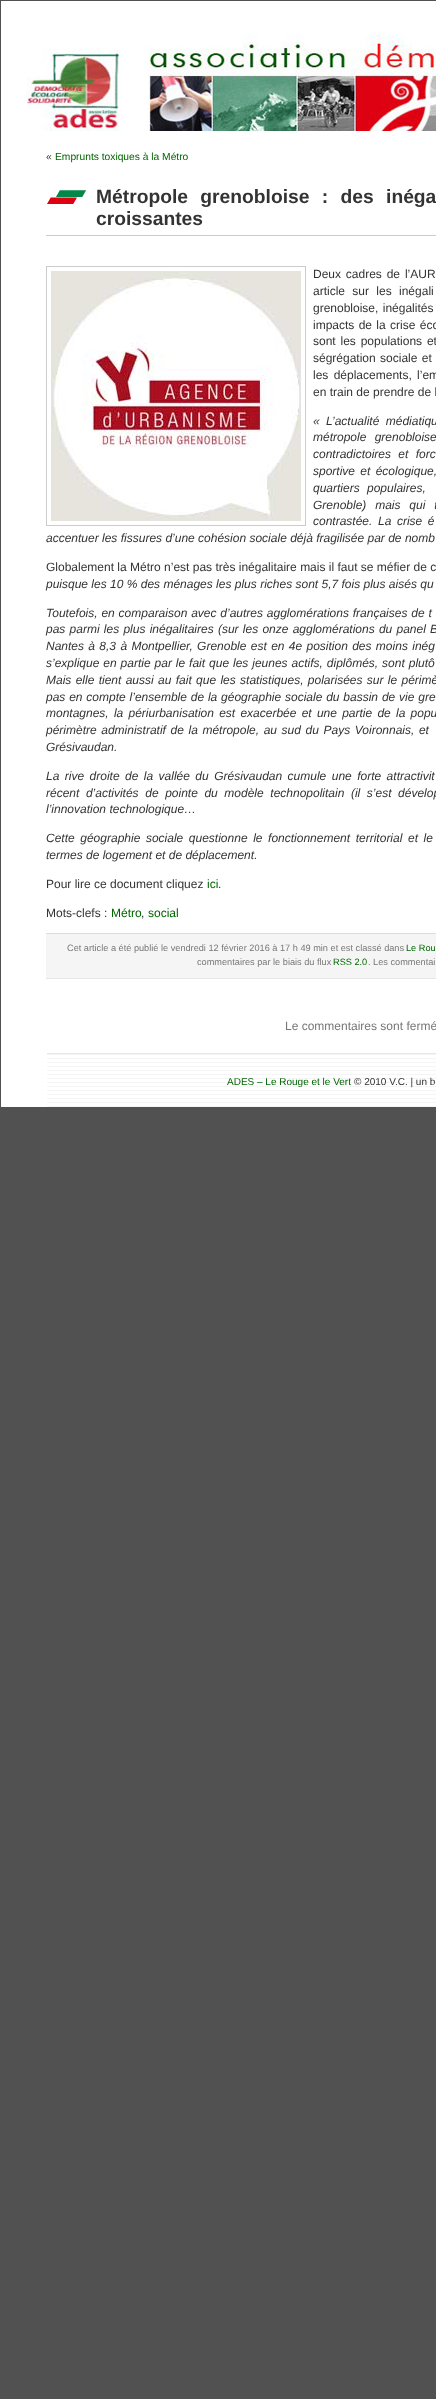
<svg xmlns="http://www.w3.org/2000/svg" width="436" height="2399">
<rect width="100%" height="100%" fill="#515151"/>
<rect x="1" y="1" width="435" height="1106" fill="#fff"/>
<image x="26" y="29" width="410" height="102" href="media/1.png"/>
<text x="46" y="160" style="font-family:Liberation Sans;font-size:10.25px;fill:#333">«</text>
<text x="55" y="160" style="font-family:Liberation Sans;font-size:10.25px;fill:#060">Emprunts toxiques à la Métro</text>
<image x="47" y="190" width="39" height="14" href="media/2.png"/>
<text x="96" y="203" word-spacing="7" style="font-family:Liberation Sans;font-size:19.25px;font-weight:bold;fill:#333">Métropole grenobloise : des inéga</text>
<text x="96" y="225" style="font-family:Liberation Sans;font-size:19.25px;font-weight:bold;fill:#333">croissantes</text>
<rect x="46" y="235" width="390" height="1" fill="#ccc"/>
<rect x="46.5" y="266.5" width="259" height="259" fill="none" stroke="#ccc"/>
<image x="51" y="271" width="250" height="250" href="media/3.png"/>
<text x="313" y="278" word-spacing="1.5" style="font-family:Liberation Sans;font-size:12px;fill:#333">Deux cadres de l’AUR</text>
<text x="313" y="295" word-spacing="4" style="font-family:Liberation Sans;font-size:12px;fill:#333">article sur les inégali</text>
<text x="313" y="312" word-spacing="1" style="font-family:Liberation Sans;font-size:12px;fill:#333">grenobloise, inégalités</text>
<text x="313" y="329" word-spacing="1" style="font-family:Liberation Sans;font-size:12px;fill:#333">impacts de la crise éco</text>
<text x="313" y="345" word-spacing="1.5" style="font-family:Liberation Sans;font-size:12px;fill:#333">sont les populations et</text>
<text x="313" y="362" word-spacing="1" style="font-family:Liberation Sans;font-size:12px;fill:#333">ségrégation sociale et</text>
<text x="313" y="379" word-spacing="2" style="font-family:Liberation Sans;font-size:12px;fill:#333">les déplacements, l’em</text>
<text x="313" y="396" style="font-family:Liberation Sans;font-size:12px;fill:#333">en train de prendre de l</text>
<text x="313" y="425" word-spacing="3" style="font-family:Liberation Sans;font-size:12px;font-style:italic;fill:#333">« L’actualité médiatiqu</text>
<text x="313" y="441" word-spacing="5" style="font-family:Liberation Sans;font-size:12px;font-style:italic;fill:#333">métropole grenobloise</text>
<text x="313" y="458" word-spacing="4" style="font-family:Liberation Sans;font-size:12px;font-style:italic;fill:#333">contradictoires et forc</text>
<text x="313" y="475" word-spacing="2" style="font-family:Liberation Sans;font-size:12px;font-style:italic;fill:#333">sportive et écologique,</text>
<text x="313" y="492" word-spacing="4" style="font-family:Liberation Sans;font-size:12px;font-style:italic;fill:#333">quartiers populaires,</text>
<text x="313" y="509" word-spacing="5.5" style="font-family:Liberation Sans;font-size:12px;font-style:italic;fill:#333">Grenoble) mais qui t</text>
<text x="313" y="525" word-spacing="2.25" style="font-family:Liberation Sans;font-size:12px;font-style:italic;fill:#333">contrastée. La crise é</text>
<text x="46" y="542" style="font-family:Liberation Sans;font-size:12px;font-style:italic;fill:#333">accentuer les fissures d’une cohésion sociale déjà fragilisée par de nomb</text>
<text x="46" y="571" style="font-family:Liberation Sans;font-size:12px;fill:#333">Globalement la Métro n’est pas très inégalitaire mais il faut se méfier de c</text>
<text x="46" y="588" style="font-family:Liberation Sans;font-size:12px;font-style:italic;fill:#333">puisque les 10 % des ménages les plus riches sont 5,7 fois plus aisés qu</text>
<text x="46" y="617" word-spacing="0.5" style="font-family:Liberation Sans;font-size:12px;font-style:italic;fill:#333">Toutefois, en comparaison avec d’autres agglomérations françaises de t</text>
<text x="46" y="633" word-spacing="0.9" style="font-family:Liberation Sans;font-size:12px;font-style:italic;fill:#333">pas parmi les plus inégalitaires (sur les onze agglomérations du panel B</text>
<text x="46" y="650" word-spacing="1" style="font-family:Liberation Sans;font-size:12px;font-style:italic;fill:#333">Nantes à 8,3 à Montpellier, Grenoble est en 4e position des moins inég</text>
<text x="46" y="667" word-spacing="0.6" style="font-family:Liberation Sans;font-size:12px;font-style:italic;fill:#333">s’explique en partie par le fait que les jeunes actifs, diplômés, sont plutô</text>
<text x="46" y="684" word-spacing="1" style="font-family:Liberation Sans;font-size:12px;font-style:italic;fill:#333">Mais elle tient aussi au fait que les statistiques, polarisées sur le périmè</text>
<text x="46" y="701" word-spacing="0.5" style="font-family:Liberation Sans;font-size:12px;font-style:italic;fill:#333">pas en compte l’ensemble de la géographie sociale du bassin de vie gre</text>
<text x="46" y="717" word-spacing="1.9" style="font-family:Liberation Sans;font-size:12px;font-style:italic;fill:#333">montagnes, la périurbanisation est exacerbée et une partie de la popu</text>
<text x="46" y="734" word-spacing="1.25" style="font-family:Liberation Sans;font-size:12px;font-style:italic;fill:#333">périmètre administratif de la métropole, au sud du Pays Voironnais, et</text>
<text x="46" y="751" style="font-family:Liberation Sans;font-size:12px;font-style:italic;fill:#333">Grésivaudan.</text>
<text x="46" y="780" word-spacing="2.1" style="font-family:Liberation Sans;font-size:12px;font-style:italic;fill:#333">La rive droite de la vallée du Grésivaudan cumule une forte attractivit</text>
<text x="46" y="797" word-spacing="3.25" style="font-family:Liberation Sans;font-size:12px;font-style:italic;fill:#333">récent d’activités de pointe du modèle technopolitain (il s’est dévelop</text>
<text x="46" y="813" style="font-family:Liberation Sans;font-size:12px;font-style:italic;fill:#333">l’innovation technologique…</text>
<text x="46" y="842" word-spacing="2.25" style="font-family:Liberation Sans;font-size:12px;font-style:italic;fill:#333">Cette géographie sociale questionne le fonctionnement territorial et le</text>
<text x="46" y="859" style="font-family:Liberation Sans;font-size:12px;font-style:italic;fill:#333">termes de logement et de déplacement.</text>
<text x="46" y="888" style="font-family:Liberation Sans;font-size:12px;fill:#333">Pour lire ce document cliquez</text>
<text x="207" y="888" style="font-family:Liberation Sans;font-size:12px;fill:#060">ici</text>
<text x="218" y="888" style="font-family:Liberation Sans;font-size:12px;fill:#333">.</text>
<text x="46" y="917" style="font-family:Liberation Sans;font-size:12px;fill:#333">Mots-clefs :</text>
<text x="111" y="917" style="font-family:Liberation Sans;font-size:12px;fill:#060">Métro</text>
<text x="141" y="917" style="font-family:Liberation Sans;font-size:12px;fill:#333">,</text>
<text x="148" y="917" style="font-family:Liberation Sans;font-size:12px;fill:#060">social</text>
<rect x="46" y="934" width="390" height="44" fill="#f5f5f5"/>
<rect x="46" y="933" width="390" height="1" fill="#ddd"/>
<rect x="46" y="978" width="390" height="1" fill="#e6e6e6"/>
<text x="67" y="951" style="font-family:Liberation Sans;font-size:9.2px;fill:#777">Cet article a été publié le vendredi 12 février 2016 à 17 h 49 min et est classé dans</text>
<text x="406" y="951" style="font-family:Liberation Sans;font-size:9.2px;fill:#060">Le Rou</text>
<text x="197" y="965" style="font-family:Liberation Sans;font-size:9.2px;fill:#777">commentaires par le biais du flux</text>
<text x="333" y="965" style="font-family:Liberation Sans;font-size:9.2px;fill:#060">RSS 2.0</text>
<text x="368" y="965" style="font-family:Liberation Sans;font-size:9.2px;fill:#777">. Les commentai</text>
<text x="285" y="1030" style="font-family:Liberation Sans;font-size:12px;fill:#777">Le commentaires sont fermé</text>
<image x="47" y="1054" width="389" height="53" href="media/4.png"/>
<rect x="47" y="1053" width="389" height="1" fill="#e6e6e6"/>
<text x="227" y="1085" style="font-family:Liberation Sans;font-size:10px;fill:#060">ADES – Le Rouge et le Vert</text>
<text x="354" y="1085" style="font-family:Liberation Sans;font-size:10px;fill:#333">© 2010 V.C. | un b</text>
</svg>
